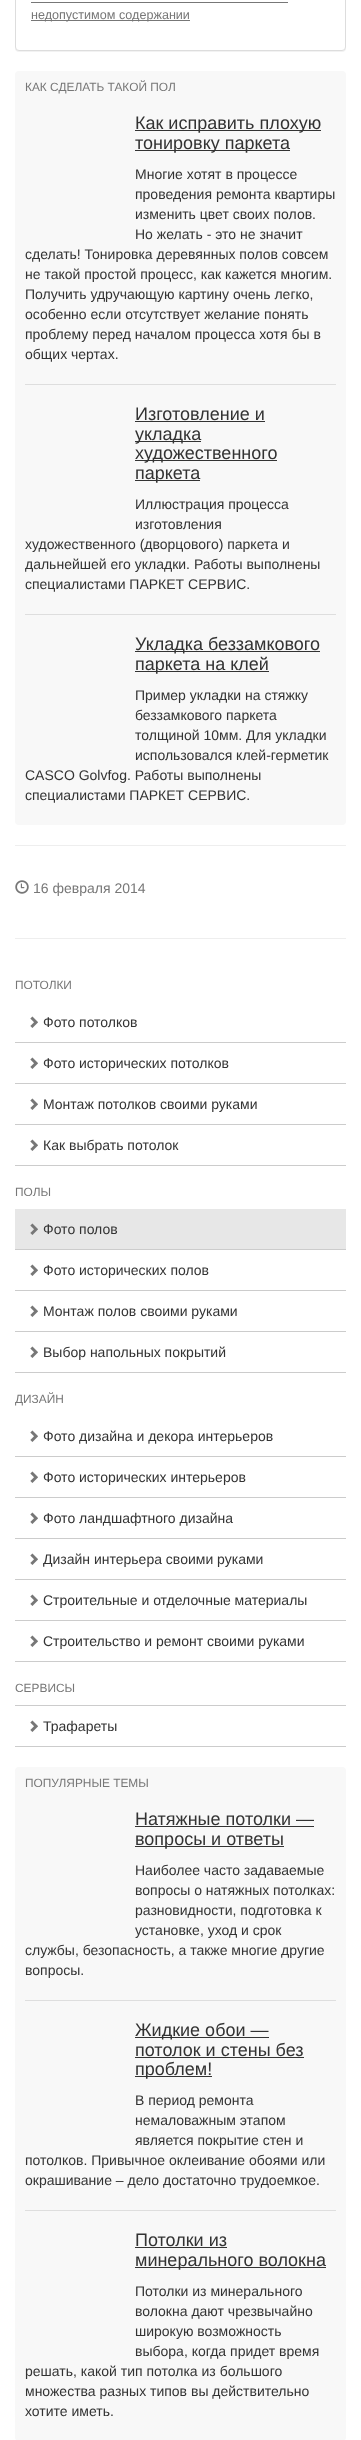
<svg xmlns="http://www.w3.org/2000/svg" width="361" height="2440">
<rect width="100%" height="100%" fill="#fff"/>
<rect x="15" y="-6" width="331" height="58" rx="4" fill="#0000000d" filter="blur(0.5px)"/>
<rect x="15.5" y="-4.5" width="330" height="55" rx="3.5" fill="#fff" stroke="#ddd"/>
<rect x="31" y="20" width="159" height="1" fill="#777"/>
<text x="31" y="19" style="font-family:Liberation Sans;font-size:12.6px;fill:#777">недопустимом содержании</text>
<rect x="31" y="2" width="257" height="1" fill="#777"/>
<rect x="15" y="71" width="331" height="754" rx="4" fill="#f8f8f8"/>
<text x="25" y="91" style="font-family:Liberation Sans;font-size:11.9px;fill:#777">КАК СДЕЛАТЬ ТАКОЙ ПОЛ</text>
<rect x="135" y="130" width="186" height="1" fill="#333"/>
<text x="135" y="129" style="font-family:Liberation Sans;font-size:18px;fill:#333">Как исправить плохую</text>
<rect x="135" y="150" width="155" height="1" fill="#333"/>
<text x="135" y="149" style="font-family:Liberation Sans;font-size:18px;fill:#333">тонировку паркета</text>
<text x="135" y="179" style="font-family:Liberation Sans;font-size:14px;fill:#333">Многие хотят в процессе</text>
<text x="135" y="199" style="font-family:Liberation Sans;font-size:14px;fill:#333">проведения ремонта квартиры</text>
<text x="135" y="219" style="font-family:Liberation Sans;font-size:14px;fill:#333">изменить цвет своих полов.</text>
<text x="135" y="239" style="font-family:Liberation Sans;font-size:14px;fill:#333">Но желать - это не значит</text>
<text x="25" y="259" style="font-family:Liberation Sans;font-size:14px;fill:#333">сделать! Тонировка деревянных полов совсем</text>
<text x="25" y="279" style="font-family:Liberation Sans;font-size:14px;fill:#333">не такой простой процесс, как кажется многим.</text>
<text x="25" y="299" style="font-family:Liberation Sans;font-size:14px;fill:#333">Получить удручающую картину очень легко,</text>
<text x="25" y="319" style="font-family:Liberation Sans;font-size:14px;fill:#333">особенно если отсутствует желание понять</text>
<text x="25" y="339" style="font-family:Liberation Sans;font-size:14px;fill:#333">проблему перед началом процесса хотя бы в</text>
<text x="25" y="359" style="font-family:Liberation Sans;font-size:14px;fill:#333">общих чертах.</text>
<rect x="25" y="384" width="311" height="1" fill="#dedede"/>
<text x="135" y="420" style="font-family:Liberation Sans;font-size:18px;fill:#333">Изготовление и</text>
<rect x="135" y="421" width="130" height="1" fill="#333"/>
<rect x="135" y="441" width="66" height="1" fill="#333"/>
<text x="135" y="440" style="font-family:Liberation Sans;font-size:18px;fill:#333">укладка</text>
<rect x="135" y="460" width="142" height="1" fill="#333"/>
<text x="135" y="459" style="font-family:Liberation Sans;font-size:18px;fill:#333">художественного</text>
<rect x="135" y="480" width="65" height="1" fill="#333"/>
<text x="135" y="479" style="font-family:Liberation Sans;font-size:18px;fill:#333">паркета</text>
<text x="135" y="509" style="font-family:Liberation Sans;font-size:14px;fill:#333">Иллюстрация процесса</text>
<text x="135" y="529" style="font-family:Liberation Sans;font-size:14px;fill:#333">изготовления</text>
<text x="25" y="549" style="font-family:Liberation Sans;font-size:14px;fill:#333">художественного (дворцового) паркета и</text>
<text x="25" y="569" style="font-family:Liberation Sans;font-size:14px;fill:#333">дальнейшей его укладки. Работы выполнены</text>
<text x="25" y="589" style="font-family:Liberation Sans;font-size:14px;fill:#333">специалистами ПАРКЕТ СЕРВИС.</text>
<rect x="25" y="614" width="311" height="1" fill="#dedede"/>
<rect x="135" y="651" width="185" height="1" fill="#333"/>
<text x="135" y="650" style="font-family:Liberation Sans;font-size:18px;fill:#333">Укладка беззамкового</text>
<rect x="135" y="671" width="134" height="1" fill="#333"/>
<text x="135" y="670" style="font-family:Liberation Sans;font-size:18px;fill:#333">паркета на клей</text>
<text x="135" y="700" style="font-family:Liberation Sans;font-size:14px;fill:#333">Пример укладки на стяжку</text>
<text x="135" y="720" style="font-family:Liberation Sans;font-size:14px;fill:#333">беззамкового паркета</text>
<text x="135" y="740" style="font-family:Liberation Sans;font-size:14px;fill:#333">толщиной 10мм. Для укладки</text>
<text x="135" y="760" style="font-family:Liberation Sans;font-size:14px;fill:#333">использовался клей-герметик</text>
<text x="25" y="780" style="font-family:Liberation Sans;font-size:14px;fill:#333">CASCO Golvfog. Работы выполнены</text>
<text x="25" y="800" style="font-family:Liberation Sans;font-size:14px;fill:#333">специалистами ПАРКЕТ СЕРВИС.</text>
<rect x="15" y="845" width="331" height="1" fill="#eee"/>
<image x="15" y="880" width="14" height="14" href="media/1.png"/>
<text x="33" y="893" style="font-family:Liberation Sans;font-size:14px;fill:#777">16 февраля 2014</text>
<rect x="15" y="938" width="331" height="1" fill="#eee"/>
<text x="15" y="989" style="font-family:Liberation Sans;font-size:11.9px;fill:#777">ПОТОЛКИ</text>
<image x="30" y="1016" width="8" height="12" href="media/2.png"/>
<text x="43" y="1027" style="font-family:Liberation Sans;font-size:14px;fill:#333">Фото потолков</text>
<rect x="15" y="1042" width="331" height="1" fill="#ccc"/>
<image x="30" y="1057" width="8" height="12" href="media/2.png"/>
<text x="43" y="1068" style="font-family:Liberation Sans;font-size:14px;fill:#333">Фото исторических потолков</text>
<rect x="15" y="1083" width="331" height="1" fill="#ccc"/>
<image x="30" y="1098" width="8" height="12" href="media/2.png"/>
<text x="43" y="1109" style="font-family:Liberation Sans;font-size:14px;fill:#333">Монтаж потолков своими руками</text>
<rect x="15" y="1124" width="331" height="1" fill="#ccc"/>
<rect x="15" y="1165" width="331" height="1" fill="#ccc"/>
<image x="30" y="1139" width="8" height="12" href="media/2.png"/>
<text x="43" y="1150" style="font-family:Liberation Sans;font-size:14px;fill:#333">Как выбрать потолок</text>
<text x="15" y="1196" style="font-family:Liberation Sans;font-size:11.9px;fill:#777">ПОЛЫ</text>
<rect x="15" y="1209" width="331" height="40" fill="#e7e7e7"/>
<image x="30" y="1223" width="8" height="12" href="media/3.png"/>
<text x="43" y="1234" style="font-family:Liberation Sans;font-size:14px;fill:#333">Фото полов</text>
<rect x="15" y="1249" width="331" height="1" fill="#ccc"/>
<image x="30" y="1264" width="8" height="12" href="media/2.png"/>
<text x="43" y="1275" style="font-family:Liberation Sans;font-size:14px;fill:#333">Фото исторических полов</text>
<rect x="15" y="1290" width="331" height="1" fill="#ccc"/>
<image x="30" y="1305" width="8" height="12" href="media/2.png"/>
<text x="43" y="1316" style="font-family:Liberation Sans;font-size:14px;fill:#333">Монтаж полов своими руками</text>
<rect x="15" y="1331" width="331" height="1" fill="#ccc"/>
<rect x="15" y="1372" width="331" height="1" fill="#ccc"/>
<image x="30" y="1346" width="8" height="12" href="media/2.png"/>
<text x="43" y="1357" style="font-family:Liberation Sans;font-size:14px;fill:#333">Выбор напольных покрытий</text>
<text x="15" y="1403" style="font-family:Liberation Sans;font-size:11.9px;fill:#777">ДИЗАЙН</text>
<image x="30" y="1430" width="8" height="12" href="media/2.png"/>
<text x="43" y="1441" style="font-family:Liberation Sans;font-size:14px;fill:#333">Фото дизайна и декора интерьеров</text>
<rect x="15" y="1456" width="331" height="1" fill="#ccc"/>
<image x="30" y="1471" width="8" height="12" href="media/2.png"/>
<text x="43" y="1482" style="font-family:Liberation Sans;font-size:14px;fill:#333">Фото исторических интерьеров</text>
<rect x="15" y="1497" width="331" height="1" fill="#ccc"/>
<image x="30" y="1512" width="8" height="12" href="media/2.png"/>
<text x="43" y="1523" style="font-family:Liberation Sans;font-size:14px;fill:#333">Фото ландшафтного дизайна</text>
<rect x="15" y="1538" width="331" height="1" fill="#ccc"/>
<image x="30" y="1553" width="8" height="12" href="media/2.png"/>
<text x="43" y="1564" style="font-family:Liberation Sans;font-size:14px;fill:#333">Дизайн интерьера своими руками</text>
<rect x="15" y="1579" width="331" height="1" fill="#ccc"/>
<image x="30" y="1594" width="8" height="12" href="media/2.png"/>
<text x="43" y="1605" style="font-family:Liberation Sans;font-size:14px;fill:#333">Строительные и отделочные материалы</text>
<rect x="15" y="1620" width="331" height="1" fill="#ccc"/>
<rect x="15" y="1661" width="331" height="1" fill="#ccc"/>
<image x="30" y="1635" width="8" height="12" href="media/2.png"/>
<text x="43" y="1646" style="font-family:Liberation Sans;font-size:14px;fill:#333">Строительство и ремонт своими руками</text>
<text x="15" y="1692" style="font-family:Liberation Sans;font-size:11.9px;fill:#777">СЕРВИСЫ</text>
<rect x="15" y="1705" width="331" height="1" fill="#ccc"/>
<rect x="15" y="1746" width="331" height="1" fill="#ccc"/>
<image x="30" y="1720" width="8" height="12" href="media/2.png"/>
<text x="43" y="1731" style="font-family:Liberation Sans;font-size:14px;fill:#333">Трафареты</text>
<rect x="15" y="1767" width="331" height="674" rx="4" fill="#f8f8f8"/>
<text x="25" y="1787" style="font-family:Liberation Sans;font-size:11.9px;fill:#777">ПОПУЛЯРНЫЕ ТЕМЫ</text>
<text x="135" y="1825" style="font-family:Liberation Sans;font-size:18px;fill:#333">Натяжные потолки —</text>
<rect x="135" y="1826" width="179" height="1" fill="#333"/>
<rect x="135" y="1846" width="149" height="1" fill="#333"/>
<text x="135" y="1845" style="font-family:Liberation Sans;font-size:18px;fill:#333">вопросы и ответы</text>
<text x="135" y="1875" style="font-family:Liberation Sans;font-size:14px;fill:#333">Наиболее часто задаваемые</text>
<text x="135" y="1895" style="font-family:Liberation Sans;font-size:14px;fill:#333">вопросы о натяжных потолках:</text>
<text x="135" y="1915" style="font-family:Liberation Sans;font-size:14px;fill:#333">разновидности, подготовка к</text>
<text x="135" y="1935" style="font-family:Liberation Sans;font-size:14px;fill:#333">установке, уход и срок</text>
<text x="25" y="1955" style="font-family:Liberation Sans;font-size:14px;fill:#333">службы, безопасность, а также многие другие</text>
<text x="25" y="1975" style="font-family:Liberation Sans;font-size:14px;fill:#333">вопросы.</text>
<rect x="25" y="2000" width="311" height="1" fill="#dedede"/>
<rect x="135" y="2037" width="134" height="1" fill="#333"/>
<text x="135" y="2036" style="font-family:Liberation Sans;font-size:18px;fill:#333">Жидкие обои —</text>
<text x="135" y="2056" style="font-family:Liberation Sans;font-size:18px;fill:#333">потолок и стены без</text>
<rect x="135" y="2057" width="169" height="1" fill="#333"/>
<rect x="135" y="2076" width="77" height="1" fill="#333"/>
<text x="135" y="2075" style="font-family:Liberation Sans;font-size:18px;fill:#333">проблем!</text>
<text x="135" y="2105" style="font-family:Liberation Sans;font-size:14px;fill:#333">В период ремонта</text>
<text x="135" y="2125" style="font-family:Liberation Sans;font-size:14px;fill:#333">немаловажным этапом</text>
<text x="135" y="2145" style="font-family:Liberation Sans;font-size:14px;fill:#333">является покрытие стен и</text>
<text x="25" y="2165" style="font-family:Liberation Sans;font-size:14px;fill:#333">потолков. Привычное оклеивание обоями или</text>
<text x="25" y="2185" style="font-family:Liberation Sans;font-size:14px;fill:#333">окрашивание – дело достаточно трудоемкое.</text>
<rect x="25" y="2210" width="311" height="1" fill="#dedede"/>
<text x="135" y="2246" style="font-family:Liberation Sans;font-size:18px;fill:#333">Потолки из</text>
<rect x="135" y="2247" width="92" height="1" fill="#333"/>
<rect x="135" y="2267" width="191" height="1" fill="#333"/>
<text x="135" y="2266" style="font-family:Liberation Sans;font-size:18px;fill:#333">минерального волокна</text>
<text x="135" y="2296" style="font-family:Liberation Sans;font-size:14px;fill:#333">Потолки из минерального</text>
<text x="135" y="2316" style="font-family:Liberation Sans;font-size:14px;fill:#333">волокна дают чрезвычайно</text>
<text x="135" y="2336" style="font-family:Liberation Sans;font-size:14px;fill:#333">широкую возможность</text>
<text x="135" y="2356" style="font-family:Liberation Sans;font-size:14px;fill:#333">выбора, когда придет время</text>
<text x="25" y="2376" style="font-family:Liberation Sans;font-size:14px;fill:#333">решать, какой тип потолка из большого</text>
<text x="25" y="2396" style="font-family:Liberation Sans;font-size:14px;fill:#333">множества разных типов вы действительно</text>
<text x="25" y="2416" style="font-family:Liberation Sans;font-size:14px;fill:#333">хотите иметь.</text>
</svg>
